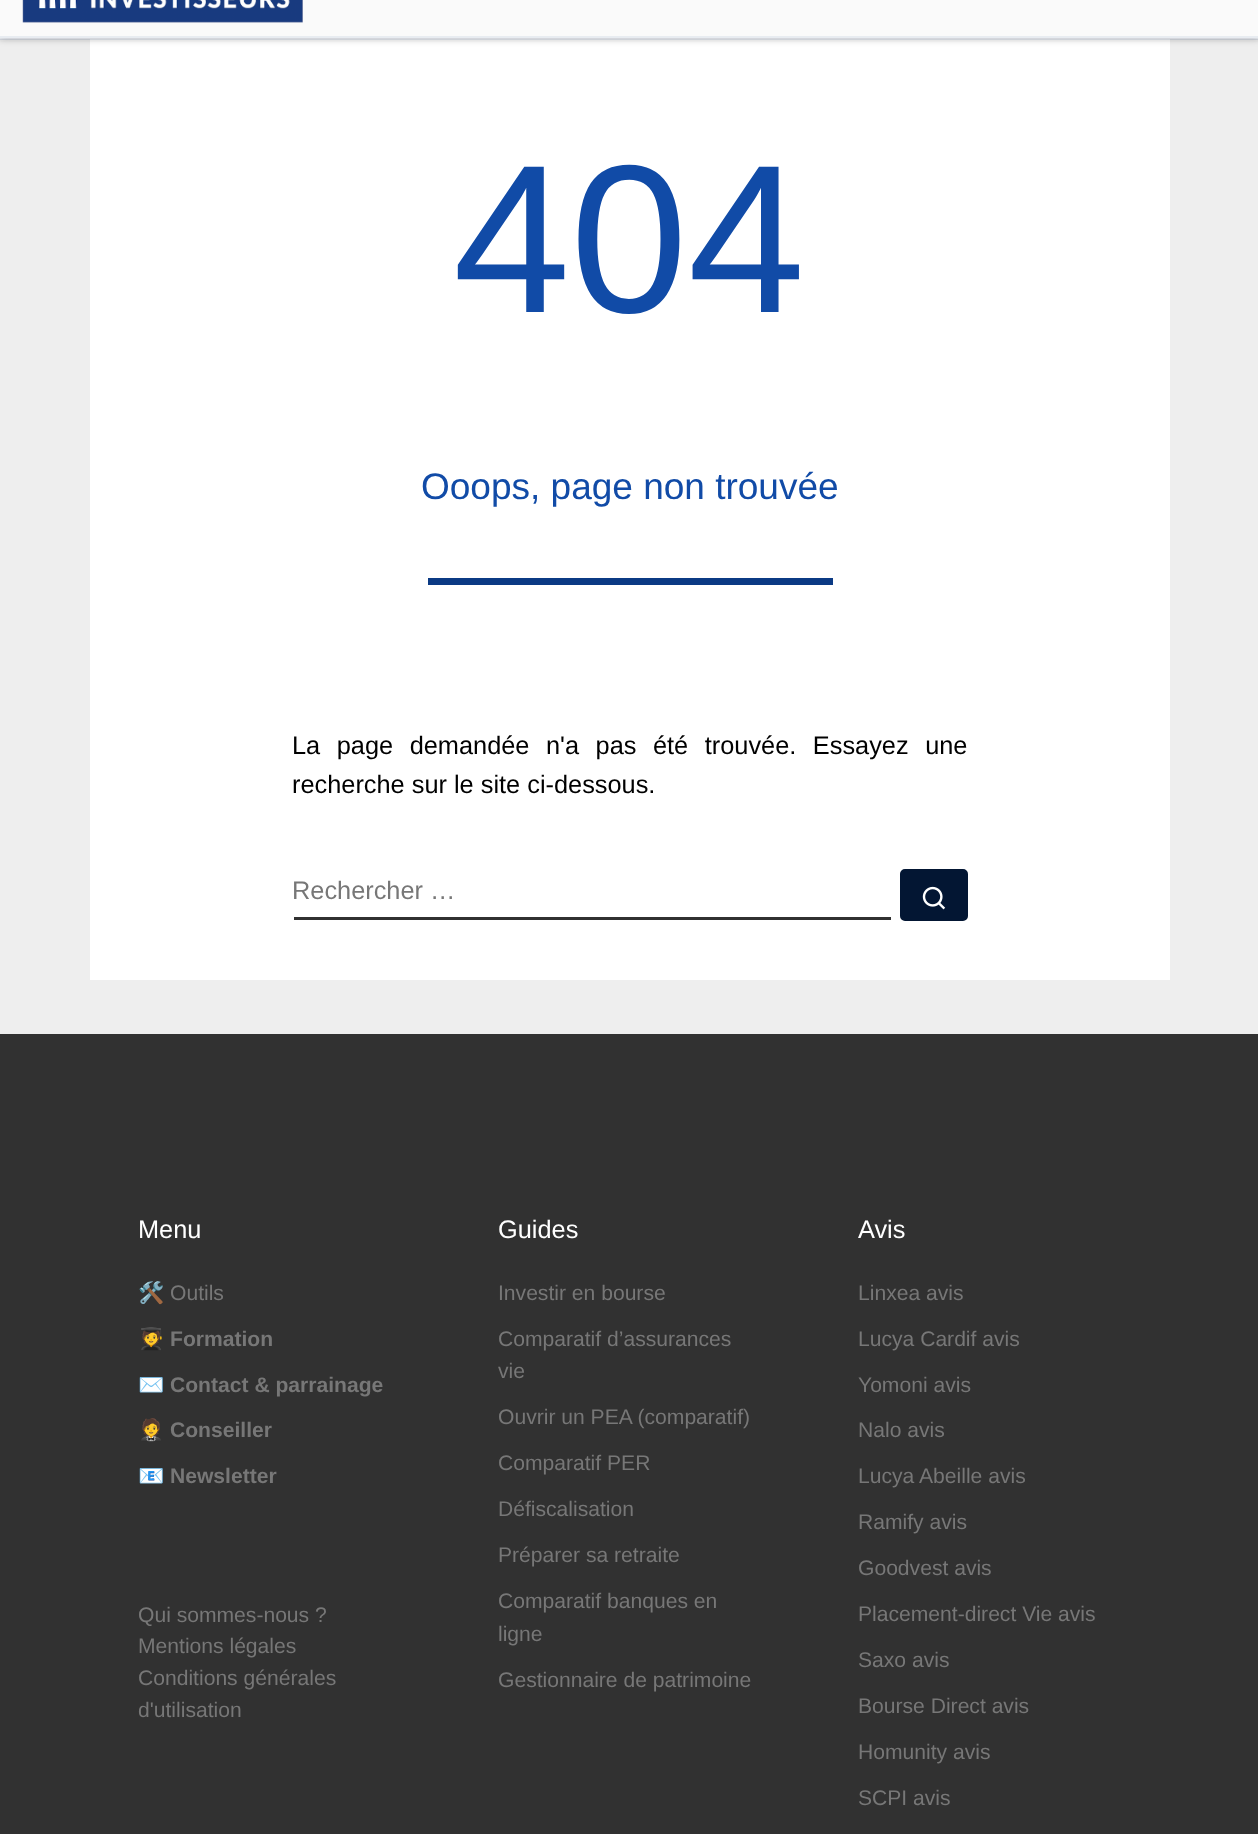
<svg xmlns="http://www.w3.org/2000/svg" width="1258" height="1834">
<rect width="100%" height="100%" fill="#eee"/>
<rect x="90" y="39" width="1080" height="941" fill="#fff"/>
<rect y="-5" width="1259" height="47" fill="#66666614" filter="blur(1.5px)"/>
<rect y="39" width="1258" height="1" fill="#0b398417"/>
<path d="M0 38v1h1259v-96h-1v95z" fill="#e9ecf2"/>
<rect y="-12" width="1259" height="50" fill="#00000033" filter="blur(4px)"/>
<rect width="1258" height="36" fill="#fafafa"/>
<image x="22" y="0" width="281" height="23" href="media/1.png"/>
<rect y="36" width="1258" height="2" fill="#e8ecf1"/>
<text x="453" y="312" style="font-family:Liberation Sans;font-size:211px;fill:#114ba7">404</text>
<text x="421" y="499" style="font-family:Liberation Sans;font-size:37px;fill:#114ba7">Ooops, page non trouvée</text>
<rect x="428" y="578" width="405" height="7" fill="#0b3a84"/>
<text x="292" y="754" word-spacing="9.5" style="font-family:Liberation Sans;font-size:25.35px;fill:#000">La page demandée n'a pas été trouvée. Essayez une</text>
<text x="292" y="793" style="font-family:Liberation Sans;font-size:25.35px;fill:#000">recherche sur le site ci-dessous.</text>
<rect x="294" y="917" width="597" height="3" fill="#313131"/>
<text x="292" y="899" style="font-family:Liberation Sans;font-size:25.35px;fill:#777">Rechercher …</text>
<rect x="901.5" y="870.5" width="65" height="49" rx="3.5" fill="#031633" stroke="#031633" stroke-width="3"/>
<image x="922" y="886" width="24" height="24" href="media/2.png"/>
<rect y="1034" width="1258" height="800" fill="#313131"/>
<text x="138" y="1238" style="font-family:Liberation Sans;font-size:25.35px;fill:#fff">Menu</text>
<text x="138" y="1300" style="font-family:Noto Color Emoji;font-size:21.1px;fill:#777">🛠️</text>
<text x="170" y="1300" style="font-family:Liberation Sans;font-size:21.1px;fill:#777">Outils</text>
<text x="138" y="1346" style="font-family:Noto Color Emoji;font-size:21.1px;fill:#777">🧑‍🎓</text>
<text x="170" y="1346" style="font-family:Liberation Sans;font-size:21.1px;font-weight:bold;fill:#777">Formation</text>
<text x="138" y="1392" style="font-family:Noto Color Emoji;font-size:21.1px;font-weight:bold;fill:#777">✉️</text>
<text x="170" y="1392" style="font-family:Liberation Sans;font-size:21.1px;font-weight:bold;fill:#777">Contact &amp; parrainage</text>
<text x="138" y="1437" style="font-family:Noto Color Emoji;font-size:21.1px;font-weight:bold;fill:#777">🤵</text>
<text x="170" y="1437" style="font-family:Liberation Sans;font-size:21.1px;font-weight:bold;fill:#777">Conseiller</text>
<text x="138" y="1483" style="font-family:Noto Color Emoji;font-size:21.1px;font-weight:bold;fill:#777">📧</text>
<text x="170" y="1483" style="font-family:Liberation Sans;font-size:21.1px;font-weight:bold;fill:#777">Newsletter</text>
<text x="138" y="1622" style="font-family:Liberation Sans;font-size:21.1px;fill:#777">Qui sommes-nous ?</text>
<text x="138" y="1653" style="font-family:Liberation Sans;font-size:21.1px;fill:#777">Mentions légales</text>
<text x="138" y="1685" style="font-family:Liberation Sans;font-size:21.1px;fill:#777">Conditions générales</text>
<text x="138" y="1717" style="font-family:Liberation Sans;font-size:21.1px;fill:#777">d'utilisation</text>
<text x="498" y="1238" style="font-family:Liberation Sans;font-size:25.35px;fill:#fff">Guides</text>
<text x="498" y="1300" style="font-family:Liberation Sans;font-size:21.1px;fill:#777">Investir en bourse</text>
<text x="498" y="1346" style="font-family:Liberation Sans;font-size:21.1px;fill:#777">Comparatif d’assurances</text>
<text x="498" y="1378" style="font-family:Liberation Sans;font-size:21.1px;fill:#777">vie</text>
<text x="498" y="1424" style="font-family:Liberation Sans;font-size:21.1px;fill:#777">Ouvrir un PEA (comparatif)</text>
<text x="498" y="1470" style="font-family:Liberation Sans;font-size:21.1px;fill:#777">Comparatif PER</text>
<text x="498" y="1516" style="font-family:Liberation Sans;font-size:21.1px;fill:#777">Défiscalisation</text>
<text x="498" y="1562" style="font-family:Liberation Sans;font-size:21.1px;fill:#777">Préparer sa retraite</text>
<text x="498" y="1608" style="font-family:Liberation Sans;font-size:21.1px;fill:#777">Comparatif banques en</text>
<text x="498" y="1641" style="font-family:Liberation Sans;font-size:21.1px;fill:#777">ligne</text>
<text x="498" y="1687" style="font-family:Liberation Sans;font-size:21.1px;fill:#777">Gestionnaire de patrimoine</text>
<text x="858" y="1238" style="font-family:Liberation Sans;font-size:25.35px;fill:#fff">Avis</text>
<text x="858" y="1300" style="font-family:Liberation Sans;font-size:21.1px;fill:#777">Linxea avis</text>
<text x="858" y="1346" style="font-family:Liberation Sans;font-size:21.1px;fill:#777">Lucya Cardif avis</text>
<text x="858" y="1392" style="font-family:Liberation Sans;font-size:21.1px;fill:#777">Yomoni avis</text>
<text x="858" y="1437" style="font-family:Liberation Sans;font-size:21.1px;fill:#777">Nalo avis</text>
<text x="858" y="1483" style="font-family:Liberation Sans;font-size:21.1px;fill:#777">Lucya Abeille avis</text>
<text x="858" y="1529" style="font-family:Liberation Sans;font-size:21.1px;fill:#777">Ramify avis</text>
<text x="858" y="1575" style="font-family:Liberation Sans;font-size:21.1px;fill:#777">Goodvest avis</text>
<text x="858" y="1621" style="font-family:Liberation Sans;font-size:21.1px;fill:#777">Placement-direct Vie avis</text>
<text x="858" y="1667" style="font-family:Liberation Sans;font-size:21.1px;fill:#777">Saxo avis</text>
<text x="858" y="1713" style="font-family:Liberation Sans;font-size:21.1px;fill:#777">Bourse Direct avis</text>
<text x="858" y="1759" style="font-family:Liberation Sans;font-size:21.1px;fill:#777">Homunity avis</text>
<text x="858" y="1805" style="font-family:Liberation Sans;font-size:21.1px;fill:#777">SCPI avis</text>
</svg>
